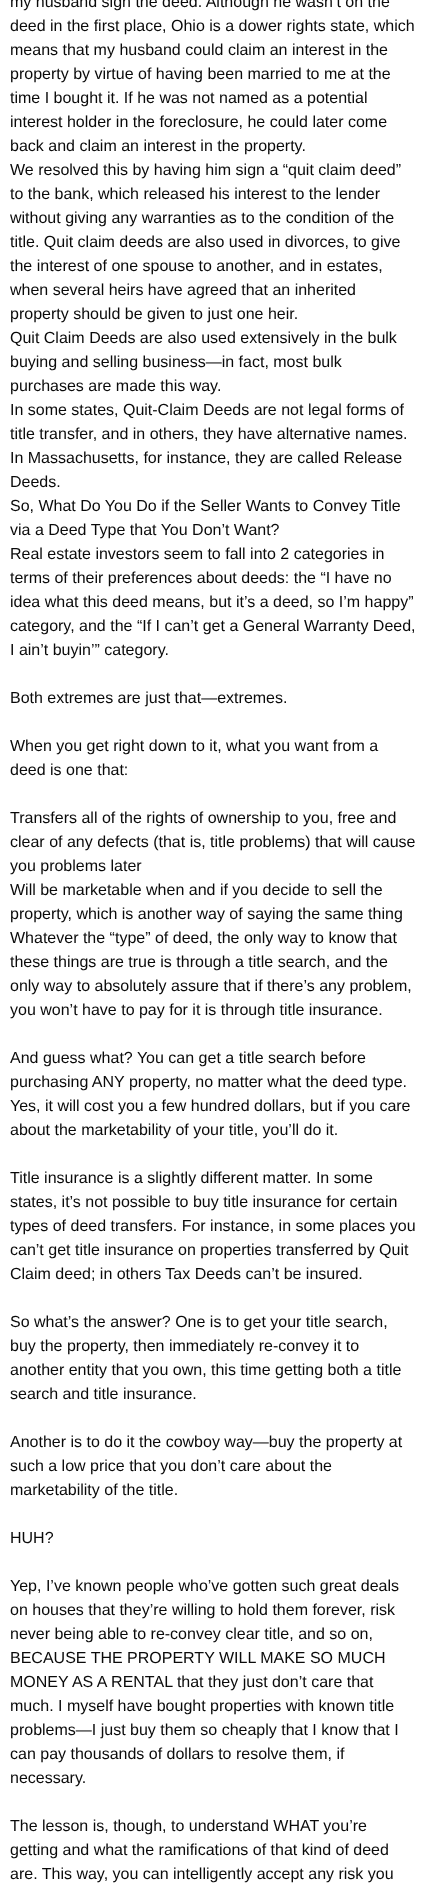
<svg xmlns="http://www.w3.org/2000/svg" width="426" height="1888">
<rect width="100%" height="100%" fill="#fff"/>
<text x="10" y="7" style="font-family:Liberation Sans;font-size:16px;fill:#0a0a0a">my husband sign the deed. Although he wasn’t on the</text>
<text x="10" y="31" style="font-family:Liberation Sans;font-size:16px;fill:#0a0a0a">deed in the first place, Ohio is a dower rights state, which</text>
<text x="10" y="55" style="font-family:Liberation Sans;font-size:16px;fill:#0a0a0a">means that my husband could claim an interest in the</text>
<text x="10" y="79" style="font-family:Liberation Sans;font-size:16px;fill:#0a0a0a">property by virtue of having been married to me at the</text>
<text x="10" y="103" style="font-family:Liberation Sans;font-size:16px;fill:#0a0a0a">time I bought it. If he was not named as a potential</text>
<text x="10" y="127" style="font-family:Liberation Sans;font-size:16px;fill:#0a0a0a">interest holder in the foreclosure, he could later come</text>
<text x="10" y="151" style="font-family:Liberation Sans;font-size:16px;fill:#0a0a0a">back and claim an interest in the property.</text>
<text x="10" y="175" style="font-family:Liberation Sans;font-size:16px;fill:#0a0a0a">We resolved this by having him sign a “quit claim deed”</text>
<text x="10" y="199" style="font-family:Liberation Sans;font-size:16px;fill:#0a0a0a">to the bank, which released his interest to the lender</text>
<text x="10" y="223" style="font-family:Liberation Sans;font-size:16px;fill:#0a0a0a">without giving any warranties as to the condition of the</text>
<text x="10" y="247" style="font-family:Liberation Sans;font-size:16px;fill:#0a0a0a">title. Quit claim deeds are also used in divorces, to give</text>
<text x="10" y="271" style="font-family:Liberation Sans;font-size:16px;fill:#0a0a0a">the interest of one spouse to another, and in estates,</text>
<text x="10" y="295" style="font-family:Liberation Sans;font-size:16px;fill:#0a0a0a">when several heirs have agreed that an inherited</text>
<text x="10" y="319" style="font-family:Liberation Sans;font-size:16px;fill:#0a0a0a">property should be given to just one heir.</text>
<text x="10" y="343" style="font-family:Liberation Sans;font-size:16px;fill:#0a0a0a">Quit Claim Deeds are also used extensively in the bulk</text>
<text x="10" y="367" style="font-family:Liberation Sans;font-size:16px;fill:#0a0a0a">buying and selling business—in fact, most bulk</text>
<text x="10" y="391" style="font-family:Liberation Sans;font-size:16px;fill:#0a0a0a">purchases are made this way.</text>
<text x="10" y="415" style="font-family:Liberation Sans;font-size:16px;fill:#0a0a0a">In some states, Quit-Claim Deeds are not legal forms of</text>
<text x="10" y="439" style="font-family:Liberation Sans;font-size:16px;fill:#0a0a0a">title transfer, and in others, they have alternative names.</text>
<text x="10" y="463" style="font-family:Liberation Sans;font-size:16px;fill:#0a0a0a">In Massachusetts, for instance, they are called Release</text>
<text x="10" y="487" style="font-family:Liberation Sans;font-size:16px;fill:#0a0a0a">Deeds.</text>
<text x="10" y="511" style="font-family:Liberation Sans;font-size:16px;fill:#0a0a0a">So, What Do You Do if the Seller Wants to Convey Title</text>
<text x="10" y="535" style="font-family:Liberation Sans;font-size:16px;fill:#0a0a0a">via a Deed Type that You Don’t Want?</text>
<text x="10" y="559" style="font-family:Liberation Sans;font-size:16px;fill:#0a0a0a">Real estate investors seem to fall into 2 categories in</text>
<text x="10" y="583" style="font-family:Liberation Sans;font-size:16px;fill:#0a0a0a">terms of their preferences about deeds: the “I have no</text>
<text x="10" y="607" style="font-family:Liberation Sans;font-size:16px;fill:#0a0a0a">idea what this deed means, but it’s a deed, so I’m happy”</text>
<text x="10" y="631" style="font-family:Liberation Sans;font-size:16px;fill:#0a0a0a">category, and the “If I can’t get a General Warranty Deed,</text>
<text x="10" y="655" style="font-family:Liberation Sans;font-size:16px;fill:#0a0a0a">I ain’t buyin’” category.</text>
<text x="10" y="703" style="font-family:Liberation Sans;font-size:16px;fill:#0a0a0a">Both extremes are just that—extremes.</text>
<text x="10" y="751" style="font-family:Liberation Sans;font-size:16px;fill:#0a0a0a">When you get right down to it, what you want from a</text>
<text x="10" y="775" style="font-family:Liberation Sans;font-size:16px;fill:#0a0a0a">deed is one that:</text>
<text x="10" y="823" style="font-family:Liberation Sans;font-size:16px;fill:#0a0a0a">Transfers all of the rights of ownership to you, free and</text>
<text x="10" y="847" style="font-family:Liberation Sans;font-size:16px;fill:#0a0a0a">clear of any defects (that is, title problems) that will cause</text>
<text x="10" y="871" style="font-family:Liberation Sans;font-size:16px;fill:#0a0a0a">you problems later</text>
<text x="10" y="895" style="font-family:Liberation Sans;font-size:16px;fill:#0a0a0a">Will be marketable when and if you decide to sell the</text>
<text x="10" y="919" style="font-family:Liberation Sans;font-size:16px;fill:#0a0a0a">property, which is another way of saying the same thing</text>
<text x="10" y="943" style="font-family:Liberation Sans;font-size:16px;fill:#0a0a0a">Whatever the “type” of deed, the only way to know that</text>
<text x="10" y="967" style="font-family:Liberation Sans;font-size:16px;fill:#0a0a0a">these things are true is through a title search, and the</text>
<text x="10" y="991" style="font-family:Liberation Sans;font-size:16px;fill:#0a0a0a">only way to absolutely assure that if there’s any problem,</text>
<text x="10" y="1015" style="font-family:Liberation Sans;font-size:16px;fill:#0a0a0a">you won’t have to pay for it is through title insurance.</text>
<text x="10" y="1063" style="font-family:Liberation Sans;font-size:16px;fill:#0a0a0a">And guess what? You can get a title search before</text>
<text x="10" y="1087" style="font-family:Liberation Sans;font-size:16px;fill:#0a0a0a">purchasing ANY property, no matter what the deed type.</text>
<text x="10" y="1111" style="font-family:Liberation Sans;font-size:16px;fill:#0a0a0a">Yes, it will cost you a few hundred dollars, but if you care</text>
<text x="10" y="1135" style="font-family:Liberation Sans;font-size:16px;fill:#0a0a0a">about the marketability of your title, you’ll do it.</text>
<text x="10" y="1183" style="font-family:Liberation Sans;font-size:16px;fill:#0a0a0a">Title insurance is a slightly different matter. In some</text>
<text x="10" y="1207" style="font-family:Liberation Sans;font-size:16px;fill:#0a0a0a">states, it’s not possible to buy title insurance for certain</text>
<text x="10" y="1231" style="font-family:Liberation Sans;font-size:16px;fill:#0a0a0a">types of deed transfers. For instance, in some places you</text>
<text x="10" y="1255" style="font-family:Liberation Sans;font-size:16px;fill:#0a0a0a">can’t get title insurance on properties transferred by Quit</text>
<text x="10" y="1279" style="font-family:Liberation Sans;font-size:16px;fill:#0a0a0a">Claim deed; in others Tax Deeds can’t be insured.</text>
<text x="10" y="1327" style="font-family:Liberation Sans;font-size:16px;fill:#0a0a0a">So what’s the answer? One is to get your title search,</text>
<text x="10" y="1351" style="font-family:Liberation Sans;font-size:16px;fill:#0a0a0a">buy the property, then immediately re-convey it to</text>
<text x="10" y="1375" style="font-family:Liberation Sans;font-size:16px;fill:#0a0a0a">another entity that you own, this time getting both a title</text>
<text x="10" y="1399" style="font-family:Liberation Sans;font-size:16px;fill:#0a0a0a">search and title insurance.</text>
<text x="10" y="1447" style="font-family:Liberation Sans;font-size:16px;fill:#0a0a0a">Another is to do it the cowboy way—buy the property at</text>
<text x="10" y="1471" style="font-family:Liberation Sans;font-size:16px;fill:#0a0a0a">such a low price that you don’t care about the</text>
<text x="10" y="1495" style="font-family:Liberation Sans;font-size:16px;fill:#0a0a0a">marketability of the title.</text>
<text x="10" y="1543" style="font-family:Liberation Sans;font-size:16px;fill:#0a0a0a">HUH?</text>
<text x="10" y="1591" style="font-family:Liberation Sans;font-size:16px;fill:#0a0a0a">Yep, I’ve known people who’ve gotten such great deals</text>
<text x="10" y="1615" style="font-family:Liberation Sans;font-size:16px;fill:#0a0a0a">on houses that they’re willing to hold them forever, risk</text>
<text x="10" y="1639" style="font-family:Liberation Sans;font-size:16px;fill:#0a0a0a">never being able to re-convey clear title, and so on,</text>
<text x="10" y="1663" style="font-family:Liberation Sans;font-size:16px;fill:#0a0a0a">BECAUSE THE PROPERTY WILL MAKE SO MUCH</text>
<text x="10" y="1687" style="font-family:Liberation Sans;font-size:16px;fill:#0a0a0a">MONEY AS A RENTAL that they just don’t care that</text>
<text x="10" y="1711" style="font-family:Liberation Sans;font-size:16px;fill:#0a0a0a">much. I myself have bought properties with known title</text>
<text x="10" y="1735" style="font-family:Liberation Sans;font-size:16px;fill:#0a0a0a">problems—I just buy them so cheaply that I know that I</text>
<text x="10" y="1759" style="font-family:Liberation Sans;font-size:16px;fill:#0a0a0a">can pay thousands of dollars to resolve them, if</text>
<text x="10" y="1783" style="font-family:Liberation Sans;font-size:16px;fill:#0a0a0a">necessary.</text>
<text x="10" y="1831" style="font-family:Liberation Sans;font-size:16px;fill:#0a0a0a">The lesson is, though, to understand WHAT you’re</text>
<text x="10" y="1855" style="font-family:Liberation Sans;font-size:16px;fill:#0a0a0a">getting and what the ramifications of that kind of deed</text>
<text x="10" y="1879" style="font-family:Liberation Sans;font-size:16px;fill:#0a0a0a">are. This way, you can intelligently accept any risk you</text>
</svg>
